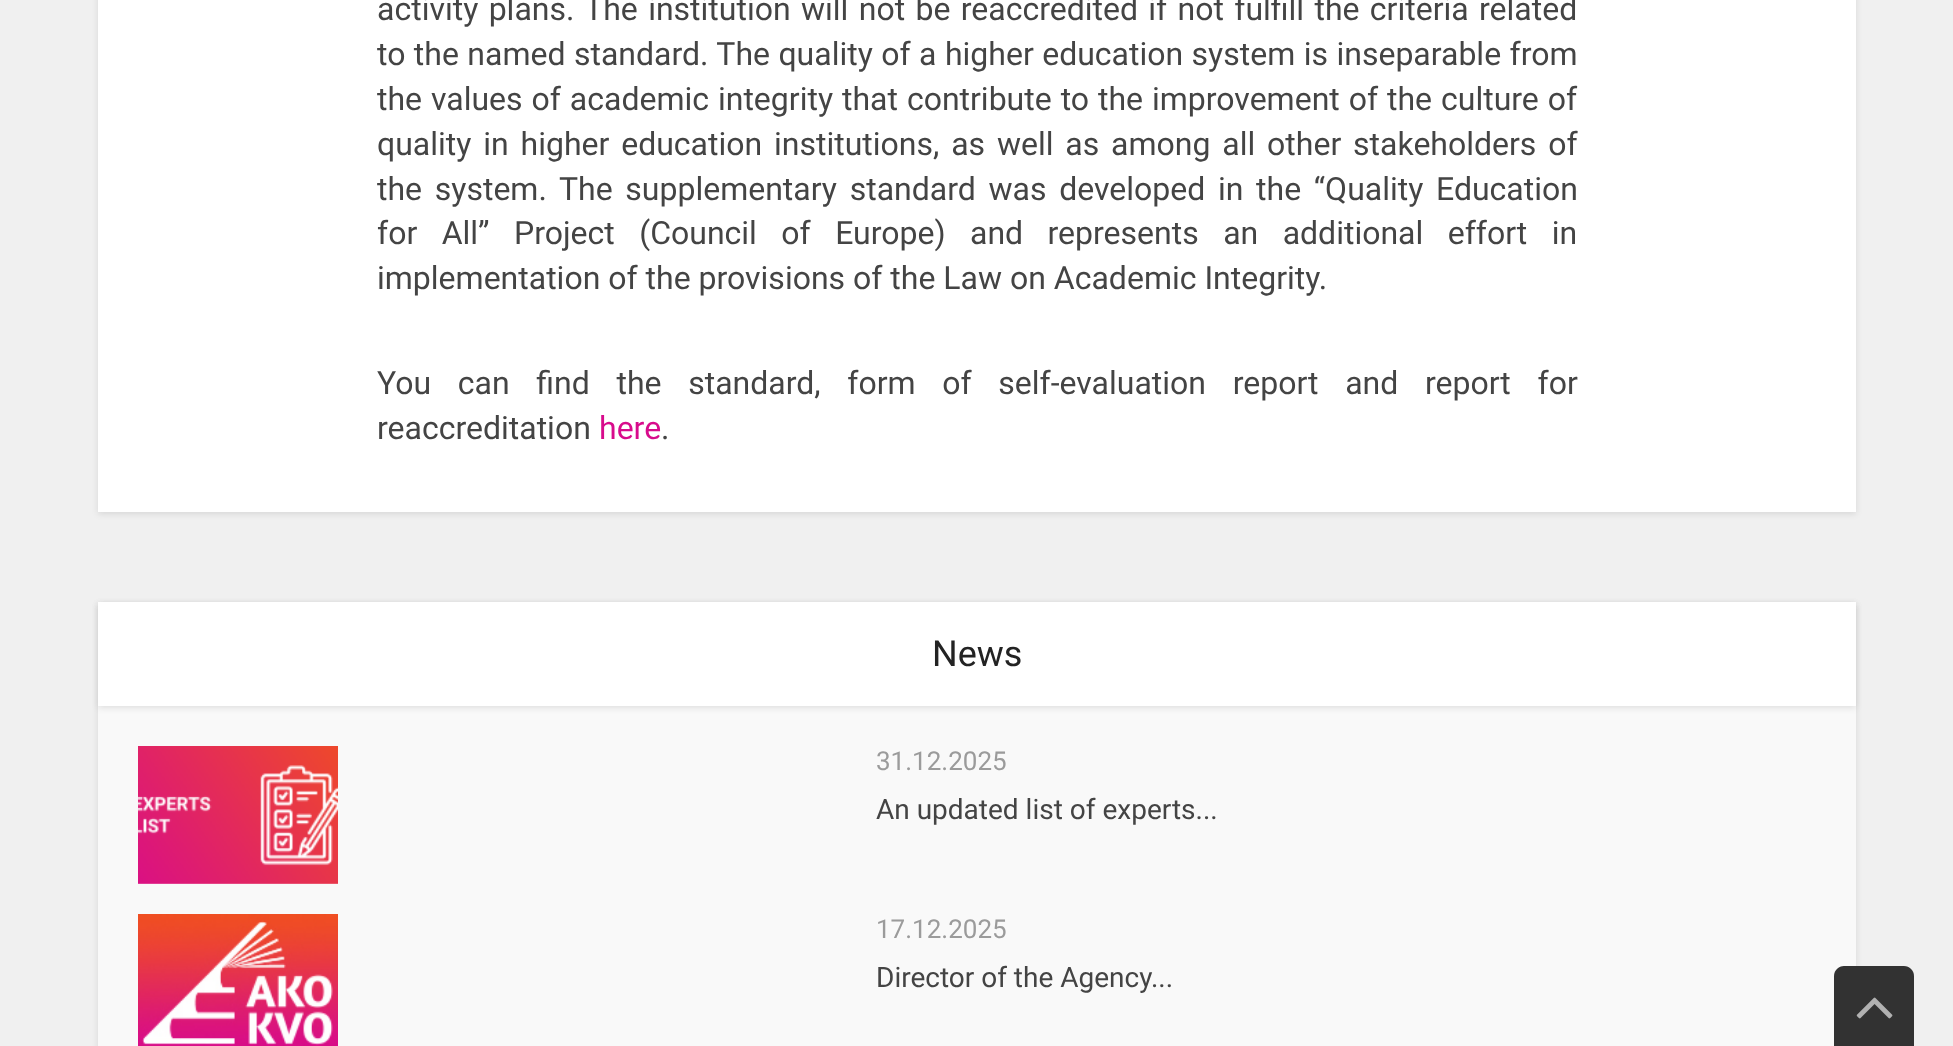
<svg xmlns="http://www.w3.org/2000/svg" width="1953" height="1046">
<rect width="100%" height="100%" fill="#f0f0f0"/>
<rect x="98" y="-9" width="1758" height="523" fill="#0000001a" filter="blur(3px)"/>
<rect x="98" width="1758" height="512" fill="#fff"/>
<text x="377" y="20" word-spacing="2.4" style="font-family:Roboto;font-size:32px;fill:#444">activity plans. The institution will not be reaccredited if not fulfill the criteria related</text>
<text x="377" y="65" word-spacing="0.5" style="font-family:Roboto;font-size:32px;fill:#444">to the named standard. The quality of a higher education system is inseparable from</text>
<text x="377" y="110" word-spacing="1" style="font-family:Roboto;font-size:32px;fill:#444">the values of academic integrity that contribute to the improvement of the culture of</text>
<text x="377" y="155" word-spacing="3.9" style="font-family:Roboto;font-size:32px;fill:#444">quality in higher education institutions, as well as among all other stakeholders of</text>
<text x="377" y="200" word-spacing="4.75" style="font-family:Roboto;font-size:32px;fill:#444">the system. The supplementary standard was developed in the “Quality Education</text>
<text x="377" y="244" word-spacing="16.5" style="font-family:Roboto;font-size:32px;fill:#444">for All” Project (Council of Europe) and represents an additional effort in</text>
<text x="377" y="289" style="font-family:Roboto;font-size:32px;fill:#444">implementation of the provisions of the Law on Academic Integrity.</text>
<text x="377" y="394" word-spacing="18.75" style="font-family:Roboto;font-size:32px;fill:#444">You can find the standard, form of self-evaluation report and report for</text>
<text x="377" y="439" style="font-family:Roboto;font-size:32px;fill:#444">reaccreditation</text>
<text x="599" y="439" style="font-family:Roboto;font-size:32px;fill:#d80b8c">here</text>
<text x="661" y="439" style="font-family:Roboto;font-size:32px;fill:#444">.</text>
<rect x="98" y="604" width="1758" height="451" fill="#0000001a" filter="blur(3px)"/>
<rect x="98" y="706" width="1758" height="340" fill="#f9f9f9"/>
<rect x="98" y="604" width="1758" height="104" fill="#0000001a" filter="blur(3px)"/>
<rect x="98" y="602" width="1758" height="104" fill="#fff"/>
<text x="932" y="666" style="font-family:Roboto;font-size:36px;fill:#232323">News</text>
<image x="138" y="746" width="200" height="138" href="media/1.png"/>
<text x="876" y="770" style="font-family:Roboto;font-size:26px;fill:#9b9b9b">31.12.2025</text>
<text x="876" y="819" style="font-family:Roboto;font-size:28px;fill:#444">An updated list of experts...</text>
<image x="138" y="914" width="200" height="132" href="media/2.png"/>
<text x="876" y="938" style="font-family:Roboto;font-size:26px;fill:#9b9b9b">17.12.2025</text>
<text x="876" y="987" style="font-family:Roboto;font-size:28px;fill:#444">Director of the Agency...</text>
<path d="M1844 966h60c5.5 0 10 4.5 10 10v70h-80v-70c0-5.5 4.5-10 10-10z" fill="#323232"/>
<image x="1856" y="997" width="37" height="22" href="media/3.png"/>
</svg>
